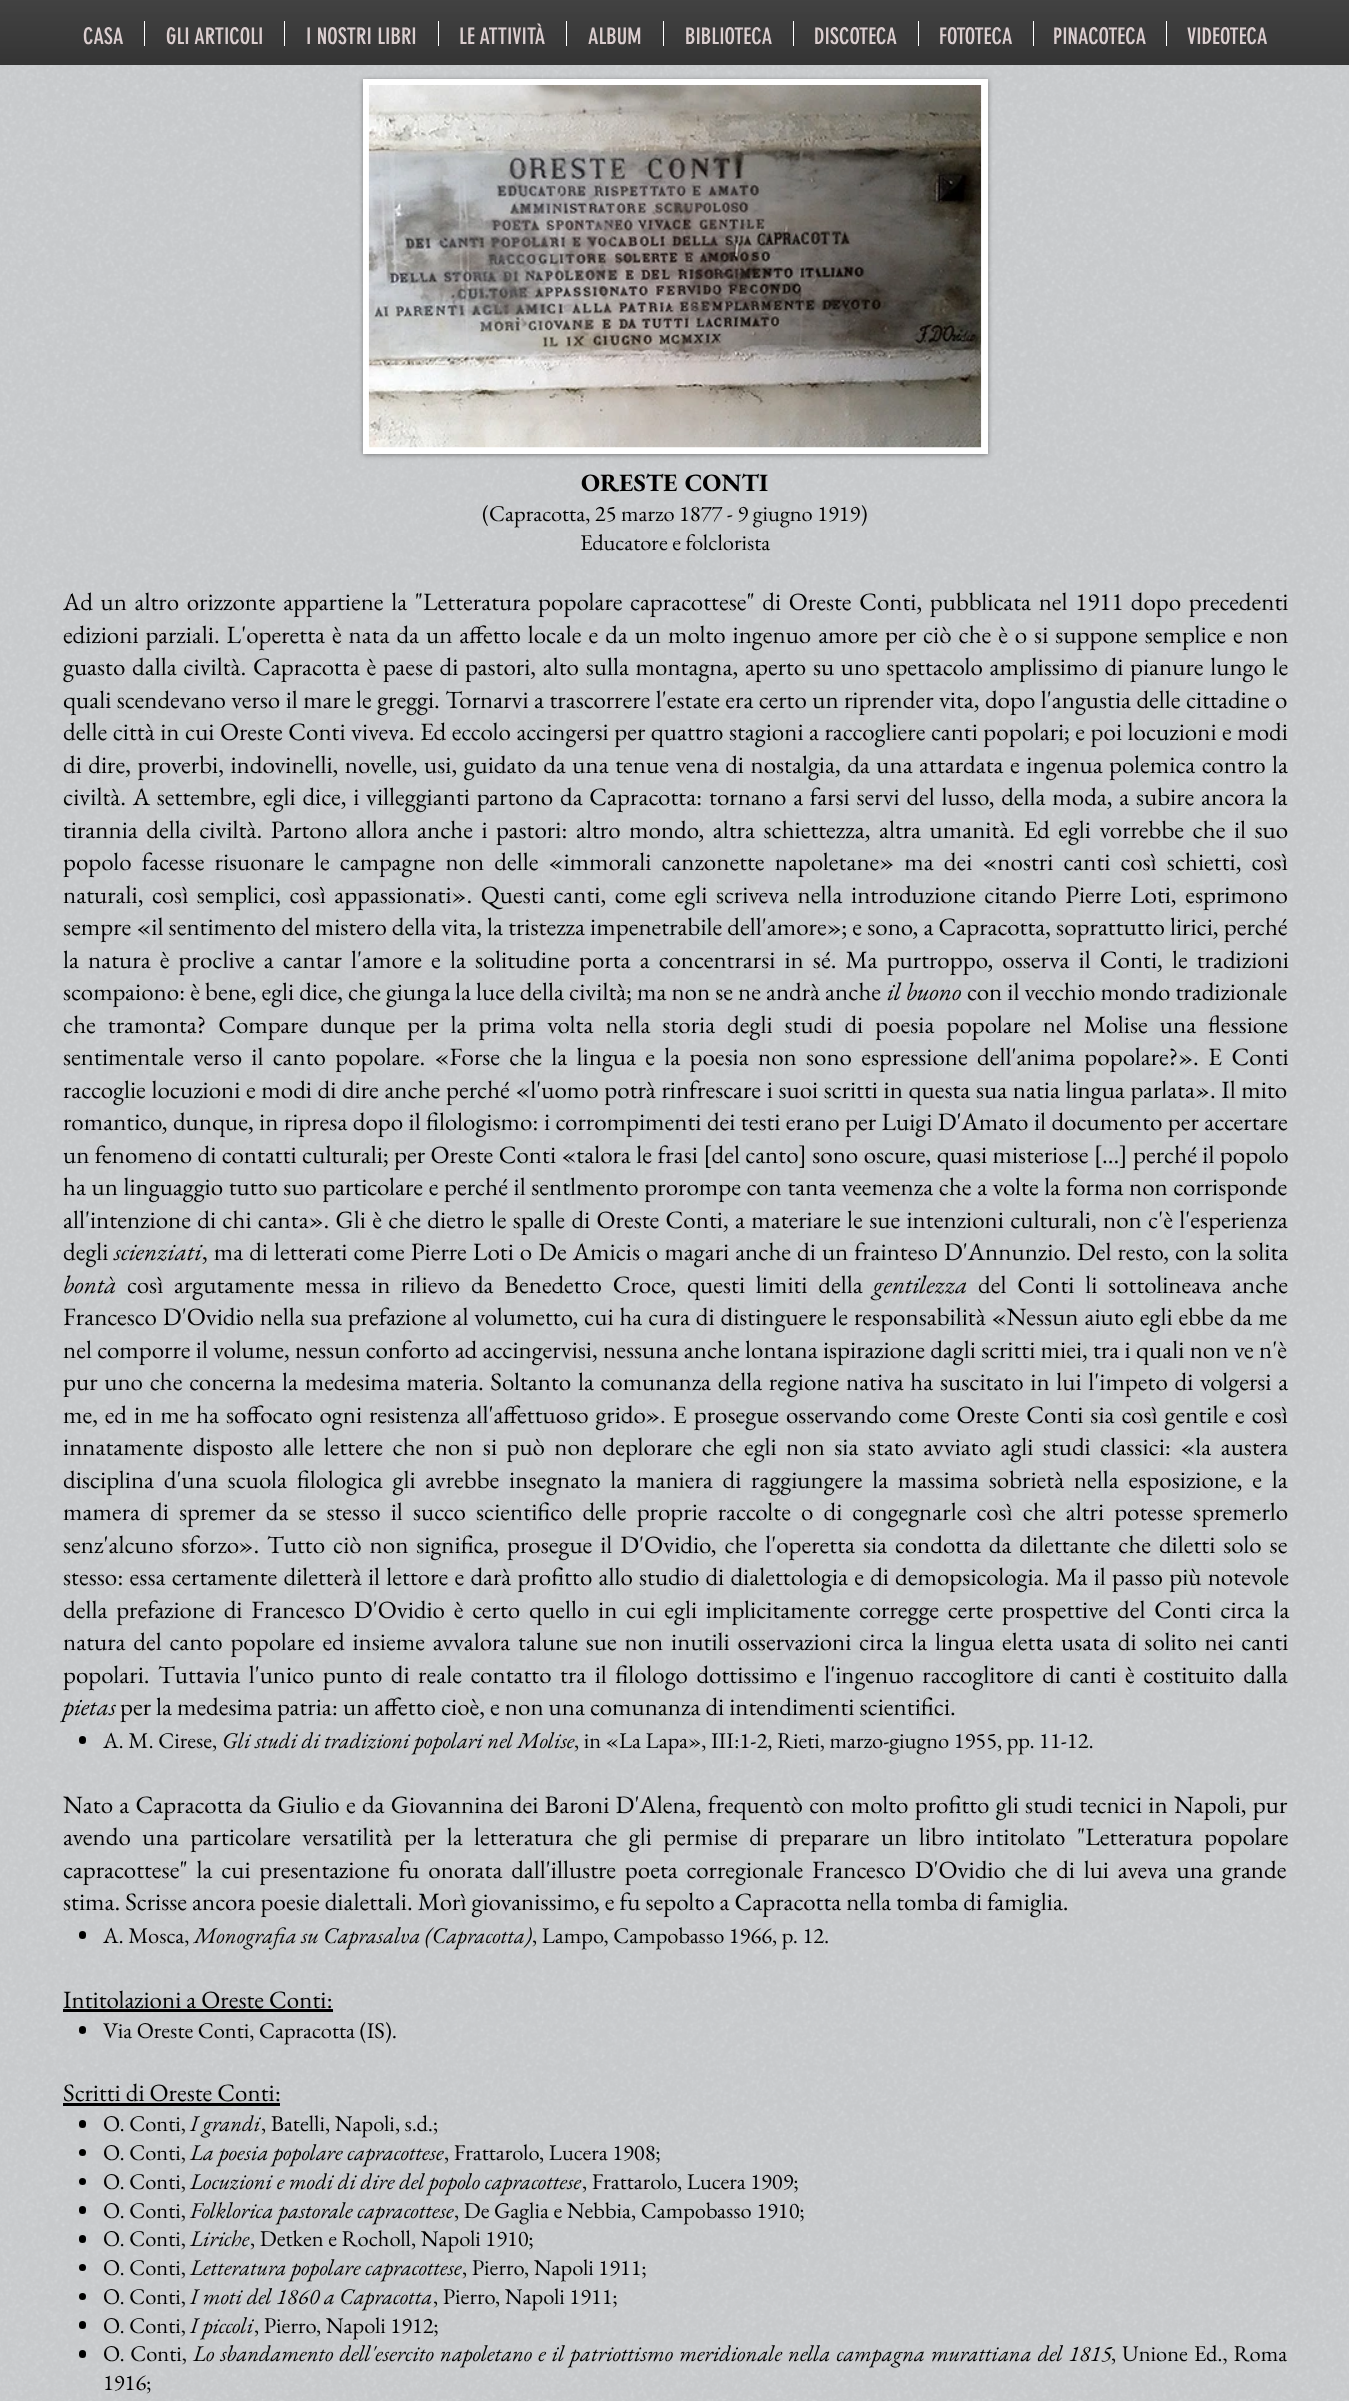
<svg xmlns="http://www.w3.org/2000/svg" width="1349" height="2401">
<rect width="100%" height="100%" fill="#e6e9eb"/>
<rect width="1349" height="65" fill="#000"/>
<image x="0" y="0" width="1349" height="65" href="media/1.png"/>
<text x="83" y="44" style="font-family:'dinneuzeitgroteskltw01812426';font-size:22.5px;fill:#dbcecf">CASA</text>
<rect x="144" y="21" width="1" height="25" fill="#fff"/>
<text x="166" y="44" style="font-family:'dinneuzeitgroteskltw01812426';font-size:22.5px;fill:#dbcecf">GLI ARTICOLI</text>
<rect x="284" y="21" width="1" height="25" fill="#fff"/>
<text x="306" y="44" style="font-family:'dinneuzeitgroteskltw01812426';font-size:22.5px;fill:#dbcecf">I NOSTRI LIBRI</text>
<rect x="438" y="21" width="1" height="25" fill="#fff"/>
<text x="459" y="44" style="font-family:'dinneuzeitgroteskltw01812426';font-size:22.5px;fill:#dbcecf">LE ATTIVITÀ</text>
<rect x="566" y="21" width="1" height="25" fill="#fff"/>
<text x="588" y="44" style="font-family:'dinneuzeitgroteskltw01812426';font-size:22.5px;fill:#dbcecf">ALBUM</text>
<rect x="663" y="21" width="1" height="25" fill="#fff"/>
<text x="685" y="44" style="font-family:'dinneuzeitgroteskltw01812426';font-size:22.5px;fill:#dbcecf">BIBLIOTECA</text>
<rect x="793" y="21" width="1" height="25" fill="#fff"/>
<text x="814" y="44" style="font-family:'dinneuzeitgroteskltw01812426';font-size:22.5px;fill:#dbcecf">DISCOTECA</text>
<rect x="918" y="21" width="1" height="25" fill="#fff"/>
<text x="939" y="44" style="font-family:'dinneuzeitgroteskltw01812426';font-size:22.5px;fill:#dbcecf">FOTOTECA</text>
<rect x="1033" y="21" width="1" height="25" fill="#fff"/>
<text x="1053" y="44" style="font-family:'dinneuzeitgroteskltw01812426';font-size:22.5px;fill:#dbcecf">PINACOTECA</text>
<rect x="1166" y="21" width="1" height="25" fill="#fff"/>
<text x="1187" y="44" style="font-family:'dinneuzeitgroteskltw01812426';font-size:22.5px;fill:#dbcecf">VIDEOTECA</text>
<image x="0" y="65" width="1349" height="2336" href="media/3.png"/>
<rect x="363" y="80" width="625" height="375" fill="#00000066" filter="blur(2.5px)"/>
<rect x="363" y="79" width="625" height="375" fill="#fff"/>
<image x="368" y="85" width="614" height="363" href="media/2.png"/>
<text x="581" y="491" style="font-family:EB Garamond;font-size:25px;font-weight:bold;fill:#000">ORESTE CONTI</text>
<text x="482" y="521" style="font-family:EB Garamond;font-size:22.5px;fill:#000">(Capracotta, 25 marzo 1877 - 9 giugno 1919)</text>
<text x="580" y="550" style="font-family:EB Garamond;font-size:22.5px;fill:#000">Educatore e folclorista</text>
<text x="63" y="610" word-spacing="2.6" style="font-family:EB Garamond;font-size:25px;fill:#000">Ad un altro orizzonte appartiene la "Letteratura popolare capracottese" di Oreste Conti, pubblicata nel 1911 dopo precedenti</text>
<text x="63" y="643" word-spacing="1.9" style="font-family:EB Garamond;font-size:25px;fill:#000">edizioni parziali. L'operetta è nata da un affetto locale e da un molto ingenuo amore per ciò che è o si suppone semplice e non</text>
<text x="63" y="675" word-spacing="1.7" style="font-family:EB Garamond;font-size:25px;fill:#000">guasto dalla civiltà. Capracotta è paese di pastori, alto sulla montagna, aperto su uno spettacolo amplissimo di pianure lungo le</text>
<text x="63" y="708" word-spacing="0.4" style="font-family:EB Garamond;font-size:25px;fill:#000">quali scendevano verso il mare le greggi. Tornarvi a trascorrere l'estate era certo un riprender vita, dopo l'angustia delle cittadine o</text>
<text x="63" y="740" word-spacing="0.5" style="font-family:EB Garamond;font-size:25px;fill:#000">delle città in cui Oreste Conti viveva. Ed eccolo accingersi per quattro stagioni a raccogliere canti popolari; e poi locuzioni e modi</text>
<text x="63" y="773" word-spacing="1.5" style="font-family:EB Garamond;font-size:25px;fill:#000">di dire, proverbi, indovinelli, novelle, usi, guidato da una tenue vena di nostalgia, da una attardata e ingenua polemica contro la</text>
<text x="63" y="805" word-spacing="1.75" style="font-family:EB Garamond;font-size:25px;fill:#000">civiltà. A settembre, egli dice, i villeggianti partono da Capracotta: tornano a farsi servi del lusso, della moda, a subire ancora la</text>
<text x="63" y="838" word-spacing="3.5" style="font-family:EB Garamond;font-size:25px;fill:#000">tirannia della civiltà. Partono allora anche i pastori: altro mondo, altra schiettezza, altra umanità. Ed egli vorrebbe che il suo</text>
<text x="63" y="870" word-spacing="5.1" style="font-family:EB Garamond;font-size:25px;fill:#000">popolo facesse risuonare le campagne non delle «immorali canzonette napoletane» ma dei «nostri canti così schietti, così</text>
<text x="63" y="903" word-spacing="3.6" style="font-family:EB Garamond;font-size:25px;fill:#000">naturali, così semplici, così appassionati». Questi canti, come egli scriveva nella introduzione citando Pierre Loti, esprimono</text>
<text x="63" y="935" word-spacing="0.1" style="font-family:EB Garamond;font-size:25px;fill:#000">sempre «il sentimento del mistero della vita, la tristezza impenetrabile dell'amore»; e sono, a Capracotta, soprattutto lirici, perché</text>
<text x="63" y="968" word-spacing="4.1" style="font-family:EB Garamond;font-size:25px;fill:#000">la natura è proclive a cantar l'amore e la solitudine porta a concentrarsi in sé. Ma purtroppo, osserva il Conti, le tradizioni</text>
<text x="63" y="1000" style="font-family:EB Garamond;font-size:25px;fill:#000">scompaiono: è bene, egli dice, che giunga la luce della civiltà; ma non se ne andrà anche</text>
<text x="887" y="1000" style="font-family:EB Garamond;font-size:25px;font-style:italic;fill:#000">il buono</text>
<text x="967" y="1000" style="font-family:EB Garamond;font-size:25px;fill:#000">con il vecchio mondo tradizionale</text>
<text x="63" y="1033" word-spacing="7" style="font-family:EB Garamond;font-size:25px;fill:#000">che tramonta? Compare dunque per la prima volta nella storia degli studi di poesia popolare nel Molise una flessione</text>
<text x="63" y="1065" word-spacing="4.25" style="font-family:EB Garamond;font-size:25px;fill:#000">sentimentale verso il canto popolare. «Forse che la lingua e la poesia non sono espressione dell'anima popolare?». E Conti</text>
<text x="63" y="1098" word-spacing="0.6" style="font-family:EB Garamond;font-size:25px;fill:#000">raccoglie locuzioni e modi di dire anche perché «l'uomo potrà rinfrescare i suoi scritti in questa sua natia lingua parlata». Il mito</text>
<text x="63" y="1130" word-spacing="0.4" style="font-family:EB Garamond;font-size:25px;fill:#000">romantico, dunque, in ripresa dopo il filologismo: i corrompimenti dei testi erano per Luigi D'Amato il documento per accertare</text>
<text x="63" y="1163" word-spacing="0.4" style="font-family:EB Garamond;font-size:25px;fill:#000">un fenomeno di contatti culturali; per Oreste Conti «talora le frasi [del canto] sono oscure, quasi misteriose [...] perché il popolo</text>
<text x="63" y="1195" word-spacing="0.6" style="font-family:EB Garamond;font-size:25px;fill:#000">ha un linguaggio tutto suo particolare e perché il sentlmento prorompe con tanta veemenza che a volte la forma non corrisponde</text>
<text x="63" y="1228" word-spacing="1.3" style="font-family:EB Garamond;font-size:25px;fill:#000">all'intenzione di chi canta». Gli è che dietro le spalle di Oreste Conti, a materiare le sue intenzioni culturali, non c'è l'esperienza</text>
<text x="63" y="1260" style="font-family:EB Garamond;font-size:25px;fill:#000">degli</text>
<text x="114" y="1260" style="font-family:EB Garamond;font-size:25px;font-style:italic;fill:#000">scienziati</text>
<text x="202" y="1260" word-spacing="1" style="font-family:EB Garamond;font-size:25px;fill:#000">, ma di letterati come Pierre Loti o De Amicis o magari anche di un frainteso D'Annunzio. Del resto, con la solita</text>
<text x="63" y="1293" style="font-family:EB Garamond;font-size:25px;font-style:italic;fill:#000">bontà</text>
<text x="127" y="1293" word-spacing="5.75" style="font-family:EB Garamond;font-size:25px;fill:#000">così argutamente messa in rilievo da Benedetto Croce, questi limiti della</text>
<text x="873" y="1293" style="font-family:EB Garamond;font-size:25px;font-style:italic;fill:#000">gentilezza</text>
<text x="978" y="1293" word-spacing="5.75" style="font-family:EB Garamond;font-size:25px;fill:#000">del Conti li sottolineava anche</text>
<text x="63" y="1325" word-spacing="0.9" style="font-family:EB Garamond;font-size:25px;fill:#000">Francesco D'Ovidio nella sua prefazione al volumetto, cui ha cura di distinguere le responsabilità «Nessun aiuto egli ebbe da me</text>
<text x="63" y="1358" word-spacing="0.3" style="font-family:EB Garamond;font-size:25px;fill:#000">nel comporre il volume, nessun conforto ad accingervisi, nessuna anche lontana ispirazione dagli scritti miei, tra i quali non ve n'è</text>
<text x="63" y="1390" word-spacing="1.7" style="font-family:EB Garamond;font-size:25px;fill:#000">pur uno che concerna la medesima materia. Soltanto la comunanza della regione nativa ha suscitato in lui l'impeto di volgersi a</text>
<text x="63" y="1423" word-spacing="1.9" style="font-family:EB Garamond;font-size:25px;fill:#000">me, ed in me ha soffocato ogni resistenza all'affettuoso grido». E prosegue osservando come Oreste Conti sia così gentile e così</text>
<text x="63" y="1455" word-spacing="4.4" style="font-family:EB Garamond;font-size:25px;fill:#000">innatamente disposto alle lettere che non si può non deplorare che egli non sia stato avviato agli studi classici: «la austera</text>
<text x="63" y="1488" word-spacing="4.75" style="font-family:EB Garamond;font-size:25px;fill:#000">disciplina d'una scuola filologica gli avrebbe insegnato la maniera di raggiungere la massima sobrietà nella esposizione, e la</text>
<text x="63" y="1520" word-spacing="5.1" style="font-family:EB Garamond;font-size:25px;fill:#000">mamera di spremer da se stesso il succo scientifico delle proprie raccolte o di congegnarle così che altri potesse spremerlo</text>
<text x="63" y="1553" word-spacing="2.9" style="font-family:EB Garamond;font-size:25px;fill:#000">senz'alcuno sforzo». Tutto ciò non significa, prosegue il D'Ovidio, che l'operetta sia condotta da dilettante che diletti solo se</text>
<text x="63" y="1585" word-spacing="1.2" style="font-family:EB Garamond;font-size:25px;fill:#000">stesso: essa certamente diletterà il lettore e darà profitto allo studio di dialettologia e di demopsicologia. Ma il passo più notevole</text>
<text x="63" y="1618" word-spacing="3.75" style="font-family:EB Garamond;font-size:25px;fill:#000">della prefazione di Francesco D'Ovidio è certo quello in cui egli implicitamente corregge certe prospettive del Conti circa la</text>
<text x="63" y="1650" word-spacing="2.75" style="font-family:EB Garamond;font-size:25px;fill:#000">natura del canto popolare ed insieme avvalora talune sue non inutili osservazioni circa la lingua eletta usata di solito nei canti</text>
<text x="63" y="1683" word-spacing="3.5" style="font-family:EB Garamond;font-size:25px;fill:#000">popolari. Tuttavia l'unico punto di reale contatto tra il filologo dottissimo e l'ingenuo raccoglitore di canti è costituito dalla</text>
<text x="63" y="1715" style="font-family:EB Garamond;font-size:25px;font-style:italic;fill:#000">pietas</text>
<text x="120" y="1715" style="font-family:EB Garamond;font-size:25px;fill:#000">per la medesima patria: un affetto cioè, e non una comunanza di intendimenti scientifici.</text>
<rect x="79" y="1736" width="7" height="8" rx="3.5" fill="#000"/>
<text x="103" y="1748" style="font-family:EB Garamond;font-size:22.5px;fill:#000">A. M. Cirese,</text>
<text x="222" y="1748" style="font-family:EB Garamond;font-size:22.5px;font-style:italic;fill:#000">Gli studi di tradizioni popolari nel Molise</text>
<text x="574" y="1748" style="font-family:EB Garamond;font-size:22.5px;fill:#000">, in «La Lapa», III:1-2, Rieti, marzo-giugno 1955, pp. 11-12.</text>
<text x="63" y="1813" word-spacing="1.3" style="font-family:EB Garamond;font-size:25px;fill:#000">Nato a Capracotta da Giulio e da Giovannina dei Baroni D'Alena, frequentò con molto profitto gli studi tecnici in Napoli, pur</text>
<text x="63" y="1845" word-spacing="6.5" style="font-family:EB Garamond;font-size:25px;fill:#000">avendo una particolare versatilità per la letteratura che gli permise di preparare un libro intitolato "Letteratura popolare</text>
<text x="63" y="1878" word-spacing="3.75" style="font-family:EB Garamond;font-size:25px;fill:#000">capracottese" la cui presentazione fu onorata dall'illustre poeta corregionale Francesco D'Ovidio che di lui aveva una grande</text>
<text x="63" y="1910" style="font-family:EB Garamond;font-size:25px;fill:#000">stima. Scrisse ancora poesie dialettali. Morì giovanissimo, e fu sepolto a Capracotta nella tomba di famiglia.</text>
<rect x="79" y="1931" width="7" height="8" rx="3.5" fill="#000"/>
<text x="103" y="1943" style="font-family:EB Garamond;font-size:22.5px;fill:#000">A. Mosca,</text>
<text x="194" y="1943" style="font-family:EB Garamond;font-size:22.5px;font-style:italic;fill:#000">Monografia su Caprasalva (Capracotta)</text>
<text x="532" y="1943" style="font-family:EB Garamond;font-size:22.5px;fill:#000">, Lampo, Campobasso 1966, p. 12.</text>
<text x="63" y="2008" style="font-family:EB Garamond;font-size:25px;fill:#000">Intitolazioni a Oreste Conti:</text>
<rect x="63" y="2009" width="270" height="3" fill="#000"/>
<rect x="79" y="2026" width="7" height="8" rx="3.5" fill="#000"/>
<text x="103" y="2038" style="font-family:EB Garamond;font-size:22.5px;fill:#000">Via Oreste Conti, Capracotta (IS).</text>
<text x="63" y="2101" style="font-family:EB Garamond;font-size:25px;fill:#000">Scritti di Oreste Conti:</text>
<rect x="63" y="2103" width="217" height="3" fill="#000"/>
<rect x="79" y="2120" width="7" height="8" rx="3.5" fill="#000"/>
<text x="103" y="2131" style="font-family:EB Garamond;font-size:22.5px;fill:#000">O. Conti,</text>
<text x="190" y="2131" style="font-family:EB Garamond;font-size:22.5px;font-style:italic;fill:#000">I grandi</text>
<text x="261" y="2131" style="font-family:EB Garamond;font-size:22.5px;fill:#000">, Batelli, Napoli, s.d.;</text>
<circle cx="82.5" cy="2152.5" r="3.5" fill="#000"/>
<text x="103" y="2160" style="font-family:EB Garamond;font-size:22.5px;fill:#000">O. Conti,</text>
<text x="190" y="2160" style="font-family:EB Garamond;font-size:22.5px;font-style:italic;fill:#000">La poesia popolare capracottese</text>
<text x="444" y="2160" style="font-family:EB Garamond;font-size:22.5px;fill:#000">, Frattarolo, Lucera 1908;</text>
<circle cx="82.5" cy="2181.5" r="3.5" fill="#000"/>
<text x="103" y="2189" style="font-family:EB Garamond;font-size:22.5px;fill:#000">O. Conti,</text>
<text x="190" y="2189" style="font-family:EB Garamond;font-size:22.5px;font-style:italic;fill:#000">Locuzioni e modi di dire del popolo capracottese</text>
<text x="582" y="2189" style="font-family:EB Garamond;font-size:22.5px;fill:#000">, Frattarolo, Lucera 1909;</text>
<rect x="79" y="2206" width="7" height="8" rx="3.5" fill="#000"/>
<text x="103" y="2218" style="font-family:EB Garamond;font-size:22.5px;fill:#000">O. Conti,</text>
<text x="190" y="2218" style="font-family:EB Garamond;font-size:22.5px;font-style:italic;fill:#000">Folklorica pastorale capracottese</text>
<text x="454" y="2218" style="font-family:EB Garamond;font-size:22.5px;fill:#000">, De Gaglia e Nebbia, Campobasso 1910;</text>
<rect x="79" y="2235" width="7" height="8" rx="3.5" fill="#000"/>
<text x="103" y="2246" style="font-family:EB Garamond;font-size:22.5px;fill:#000">O. Conti,</text>
<text x="190" y="2246" style="font-family:EB Garamond;font-size:22.5px;font-style:italic;fill:#000">Liriche</text>
<text x="250" y="2246" style="font-family:EB Garamond;font-size:22.5px;fill:#000">, Detken e Rocholl, Napoli 1910;</text>
<circle cx="82.5" cy="2267.5" r="3.5" fill="#000"/>
<text x="103" y="2275" style="font-family:EB Garamond;font-size:22.5px;fill:#000">O. Conti,</text>
<text x="190" y="2275" style="font-family:EB Garamond;font-size:22.5px;font-style:italic;fill:#000">Letteratura popolare capracottese</text>
<text x="462" y="2275" style="font-family:EB Garamond;font-size:22.5px;fill:#000">, Pierro, Napoli 1911;</text>
<circle cx="82.5" cy="2296.5" r="3.5" fill="#000"/>
<text x="103" y="2304" style="font-family:EB Garamond;font-size:22.5px;fill:#000">O. Conti,</text>
<text x="190" y="2304" style="font-family:EB Garamond;font-size:22.5px;font-style:italic;fill:#000">I moti del 1860 a Capracotta</text>
<text x="433" y="2304" style="font-family:EB Garamond;font-size:22.5px;fill:#000">, Pierro, Napoli 1911;</text>
<rect x="79" y="2321" width="7" height="8" rx="3.5" fill="#000"/>
<text x="103" y="2333" style="font-family:EB Garamond;font-size:22.5px;fill:#000">O. Conti,</text>
<text x="190" y="2333" style="font-family:EB Garamond;font-size:22.5px;font-style:italic;fill:#000">I piccoli</text>
<text x="254" y="2333" style="font-family:EB Garamond;font-size:22.5px;fill:#000">, Pierro, Napoli 1912;</text>
<rect x="79" y="2350" width="7" height="8" rx="3.5" fill="#000"/>
<text x="103" y="2361" word-spacing="1" style="font-family:EB Garamond;font-size:22.5px;fill:#000">O. Conti,</text>
<text x="193" y="2361" word-spacing="1.4" style="font-family:EB Garamond;font-size:22.5px;font-style:italic;fill:#000">Lo sbandamento dell'esercito napoletano e il patriottismo meridionale nella campagna murattiana del 1815</text>
<text x="1111" y="2361" word-spacing="1.4" style="font-family:EB Garamond;font-size:22.5px;fill:#000">, Unione Ed., Roma</text>
<text x="103" y="2390" style="font-family:EB Garamond;font-size:22.5px;fill:#000">1916;</text>
</svg>
